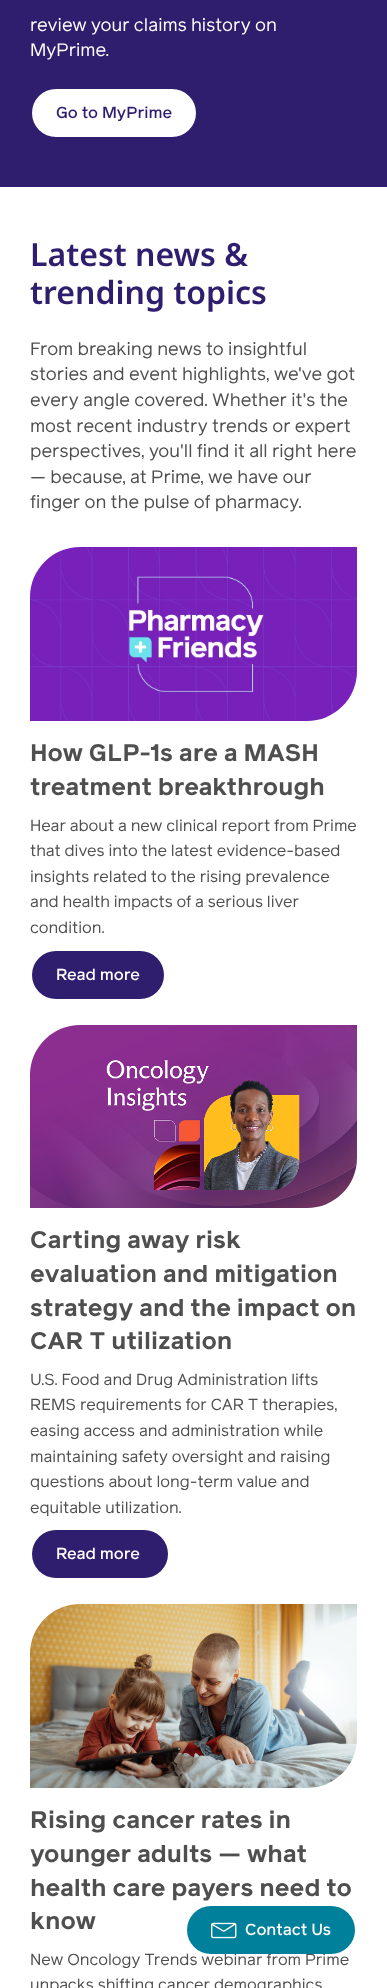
<svg xmlns="http://www.w3.org/2000/svg" width="387" height="1988">
<rect width="100%" height="100%" fill="#fff"/>
<rect width="387" height="187" fill="#2f1d6e"/>
<text x="30" y="31" style="font-family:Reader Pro;font-size:18px;fill:#fff">review your claims history on</text>
<text x="30" y="56" style="font-family:Reader Pro;font-size:18px;fill:#fff">MyPrime.</text>
<rect x="32" y="89" width="164" height="48" rx="24" fill="#fff"/>
<text x="56" y="118" style="font-family:Reader Pro;font-size:16px;font-weight:500;fill:#2f1d6e">Go to MyPrime</text>
<text x="30" y="266" style="font-family:Noto Sans;font-size:32px;font-weight:600;fill:#2f1d6e">Latest news &amp;</text>
<text x="30" y="304" style="font-family:Noto Sans;font-size:32px;font-weight:600;fill:#2f1d6e">trending topics</text>
<text x="30" y="355" style="font-family:Reader Pro;font-size:18px;fill:#4f4f4f">From breaking news to insightful</text>
<text x="30" y="380" style="font-family:Reader Pro;font-size:18px;fill:#4f4f4f">stories and event highlights, we've got</text>
<text x="30" y="406" style="font-family:Reader Pro;font-size:18px;fill:#4f4f4f">every angle covered. Whether it's the</text>
<text x="30" y="432" style="font-family:Reader Pro;font-size:18px;fill:#4f4f4f">most recent industry trends or expert</text>
<text x="30" y="457" style="font-family:Reader Pro;font-size:18px;fill:#4f4f4f">perspectives, you'll find it all right here</text>
<text x="30" y="483" style="font-family:Reader Pro;font-size:18px;fill:#4f4f4f">— because, at Prime, we have our</text>
<text x="30" y="508" style="font-family:Reader Pro;font-size:18px;fill:#4f4f4f">finger on the pulse of pharmacy.</text>
<image x="30" y="547" width="327" height="174" href="media/1.png"/>
<text x="30" y="761" style="font-family:Reader Pro;font-size:24px;font-weight:bold;fill:#4f4f4f">How GLP-1s are a MASH</text>
<text x="30" y="795" style="font-family:Reader Pro;font-size:24px;font-weight:bold;fill:#4f4f4f">treatment breakthrough</text>
<text x="30" y="831" style="font-family:Reader Pro;font-size:16px;fill:#4f4f4f">Hear about a new clinical report from Prime</text>
<text x="30" y="856" style="font-family:Reader Pro;font-size:16px;fill:#4f4f4f">that dives into the latest evidence-based</text>
<text x="30" y="882" style="font-family:Reader Pro;font-size:16px;fill:#4f4f4f">insights related to the rising prevalence</text>
<text x="30" y="907" style="font-family:Reader Pro;font-size:16px;fill:#4f4f4f">and health impacts of a serious liver</text>
<text x="30" y="933" style="font-family:Reader Pro;font-size:16px;fill:#4f4f4f">condition.</text>
<rect x="32" y="951" width="132" height="48" rx="24" fill="#2f1d6e"/>
<text x="56" y="980" style="font-family:Reader Pro;font-size:16px;font-weight:500;fill:#fff">Read more</text>
<image x="30" y="1025" width="327" height="183" href="media/2.png"/>
<text x="30" y="1248" style="font-family:Reader Pro;font-size:24px;font-weight:bold;fill:#4f4f4f">Carting away risk</text>
<text x="30" y="1282" style="font-family:Reader Pro;font-size:24px;font-weight:bold;fill:#4f4f4f">evaluation and mitigation</text>
<text x="30" y="1316" style="font-family:Reader Pro;font-size:24px;font-weight:bold;fill:#4f4f4f">strategy and the impact on</text>
<text x="30" y="1349" style="font-family:Reader Pro;font-size:24px;font-weight:bold;fill:#4f4f4f">CAR T utilization</text>
<text x="30" y="1385" style="font-family:Reader Pro;font-size:16px;fill:#4f4f4f">U.S. Food and Drug Administration lifts</text>
<text x="30" y="1410" style="font-family:Reader Pro;font-size:16px;fill:#4f4f4f">REMS requirements for CAR T therapies,</text>
<text x="30" y="1436" style="font-family:Reader Pro;font-size:16px;fill:#4f4f4f">easing access and administration while</text>
<text x="30" y="1462" style="font-family:Reader Pro;font-size:16px;fill:#4f4f4f">maintaining safety oversight and raising</text>
<text x="30" y="1487" style="font-family:Reader Pro;font-size:16px;fill:#4f4f4f">questions about long-term value and</text>
<text x="30" y="1513" style="font-family:Reader Pro;font-size:16px;fill:#4f4f4f">equitable utilization.</text>
<rect x="32" y="1530" width="136" height="48" rx="24" fill="#2f1d6e"/>
<text x="56" y="1559" style="font-family:Reader Pro;font-size:16px;font-weight:500;fill:#fff">Read more</text>
<image x="30" y="1604" width="327" height="184" href="media/3.png"/>
<text x="30" y="1828" style="font-family:Reader Pro;font-size:24px;font-weight:bold;fill:#4f4f4f">Rising cancer rates in</text>
<text x="30" y="1862" style="font-family:Reader Pro;font-size:24px;font-weight:bold;fill:#4f4f4f">younger adults — what</text>
<text x="30" y="1896" style="font-family:Reader Pro;font-size:24px;font-weight:bold;fill:#4f4f4f">health care payers need to</text>
<text x="30" y="1929" style="font-family:Reader Pro;font-size:24px;font-weight:bold;fill:#4f4f4f">know</text>
<text x="30" y="1965" style="font-family:Reader Pro;font-size:16px;fill:#4f4f4f">New Oncology Trends webinar from Prime</text>
<text x="30" y="1990" style="font-family:Reader Pro;font-size:16px;fill:#4f4f4f">unpacks shifting cancer demographics</text>
<rect x="187" y="1906" width="168" height="48" rx="24" fill="#00809b"/>
<image x="211" y="1922" width="26" height="17" href="media/4.png"/>
<text x="245" y="1935" style="font-family:Reader Pro;font-size:16px;font-weight:500;fill:#fff">Contact Us</text>
</svg>
